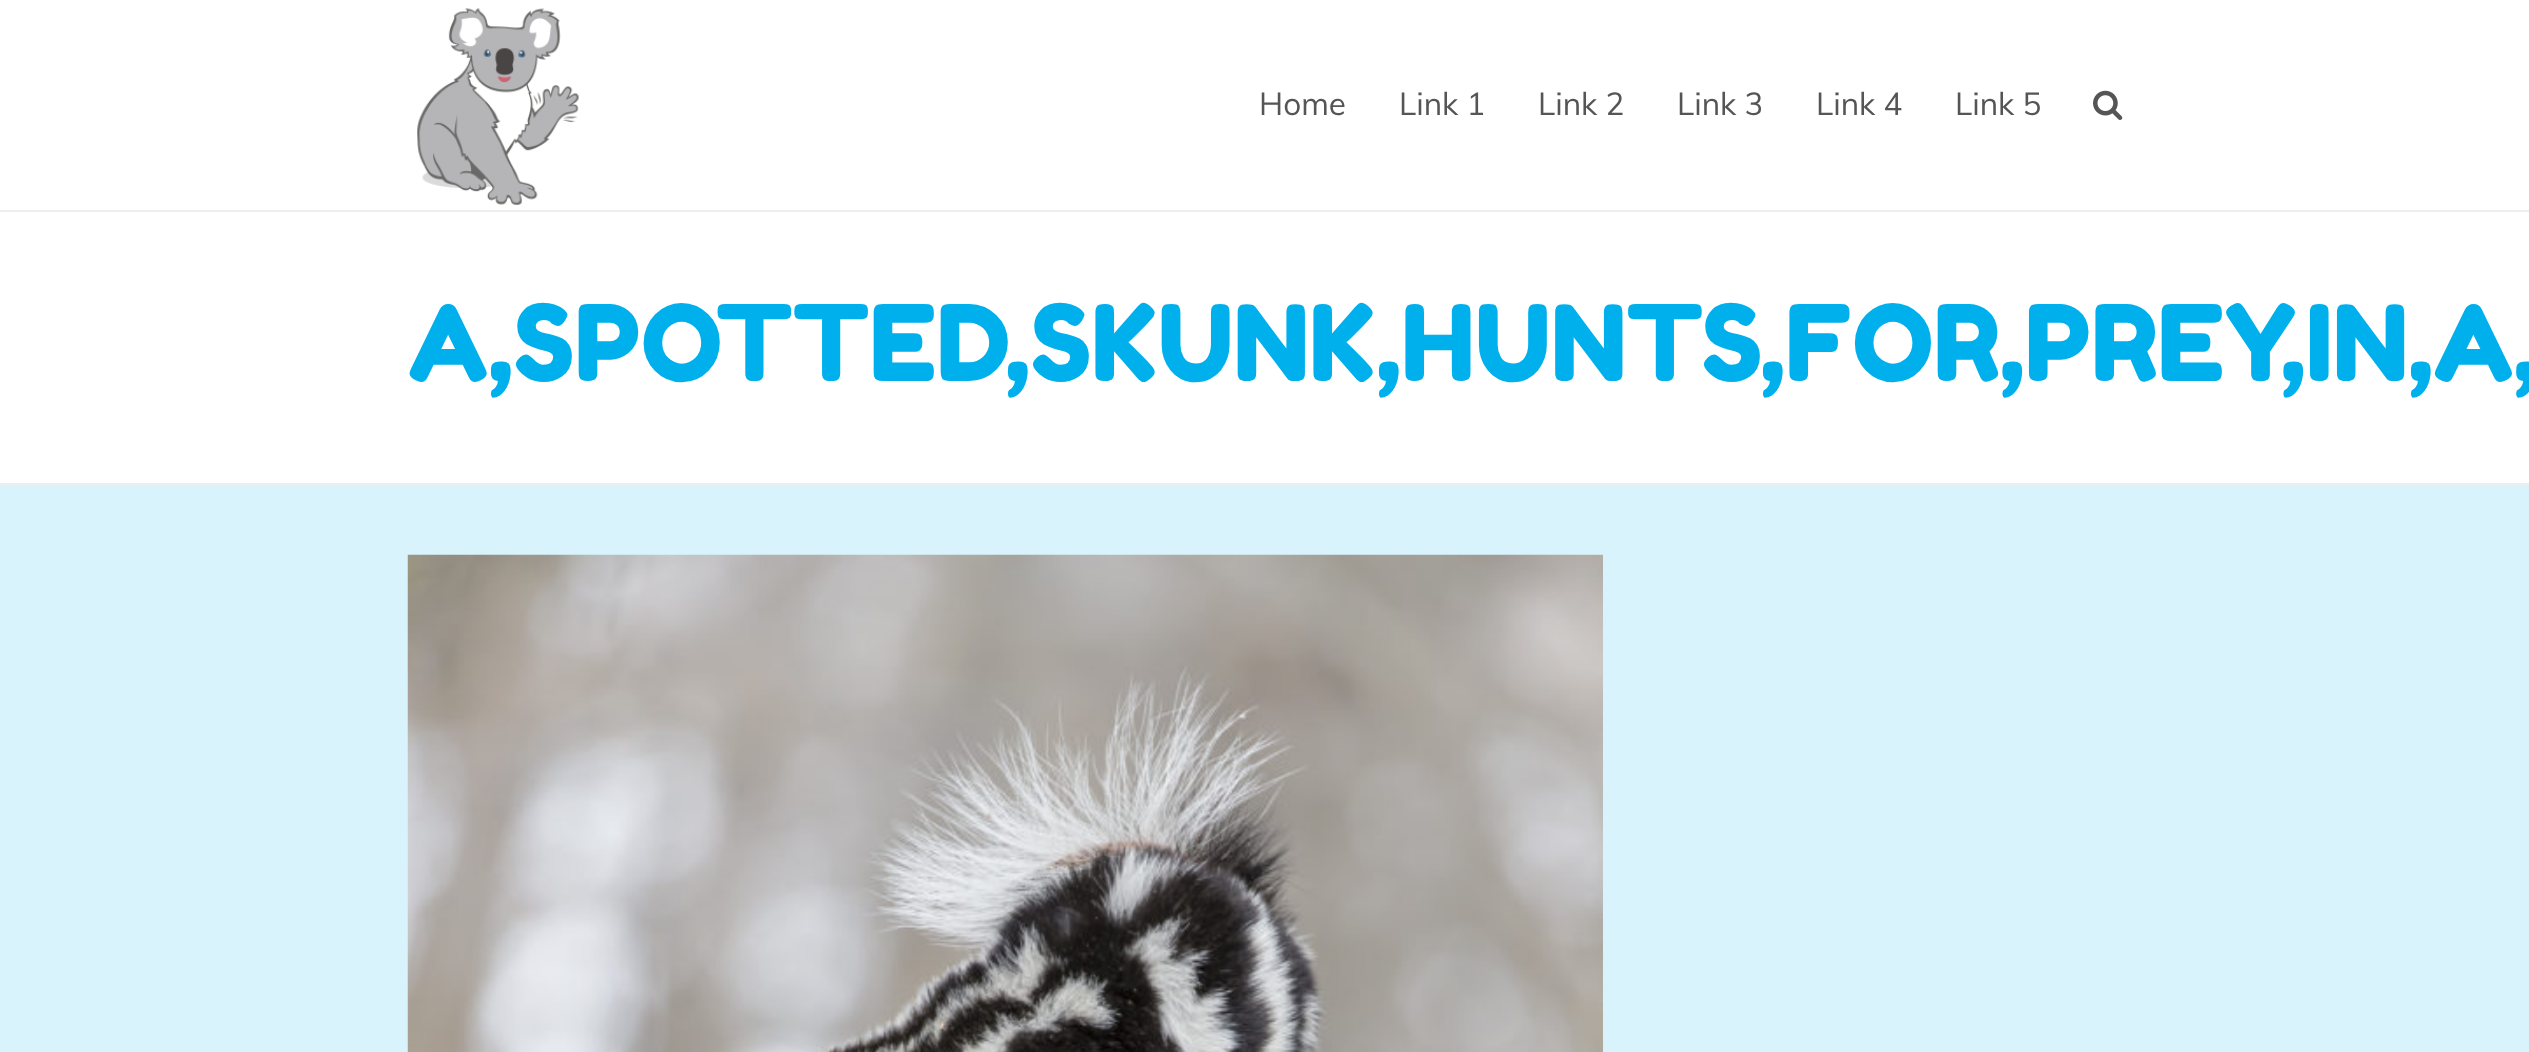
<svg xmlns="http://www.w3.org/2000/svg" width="2529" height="1052">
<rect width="100%" height="100%" fill="#d9f3fc"/>
<rect width="2529" height="210" fill="#fff"/>
<image x="417" y="8" width="162" height="197" href="media/1.png"/>
<text x="1259" y="115" style="font-family:Muli;font-size:31.5px;fill:#555">Home</text>
<text x="1399" y="115" style="font-family:Muli;font-size:31.5px;fill:#555">Link 1</text>
<text x="1538" y="115" style="font-family:Muli;font-size:31.5px;fill:#555">Link 2</text>
<text x="1677" y="115" style="font-family:Muli;font-size:31.5px;fill:#555">Link 3</text>
<text x="1816" y="115" style="font-family:Muli;font-size:31.5px;fill:#555">Link 4</text>
<text x="1955" y="115" style="font-family:Muli;font-size:31.5px;fill:#555">Link 5</text>
<image x="2093" y="90" width="30" height="30" href="media/2.png"/>
<rect y="212" width="2529" height="271" fill="#fff"/>
<rect y="210" width="2529" height="2" fill="#eee"/>
<rect y="483" width="2529" height="2" fill="#eee"/>
<text x="408" y="381" style="font-family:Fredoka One;font-size:105px;fill:#00b0ed">A,SPOTTED,SKUNK,HUNTS,FOR,PREY,IN,A,</text>
<image x="407" y="554" width="1196" height="498" href="media/3.png"/>
</svg>
